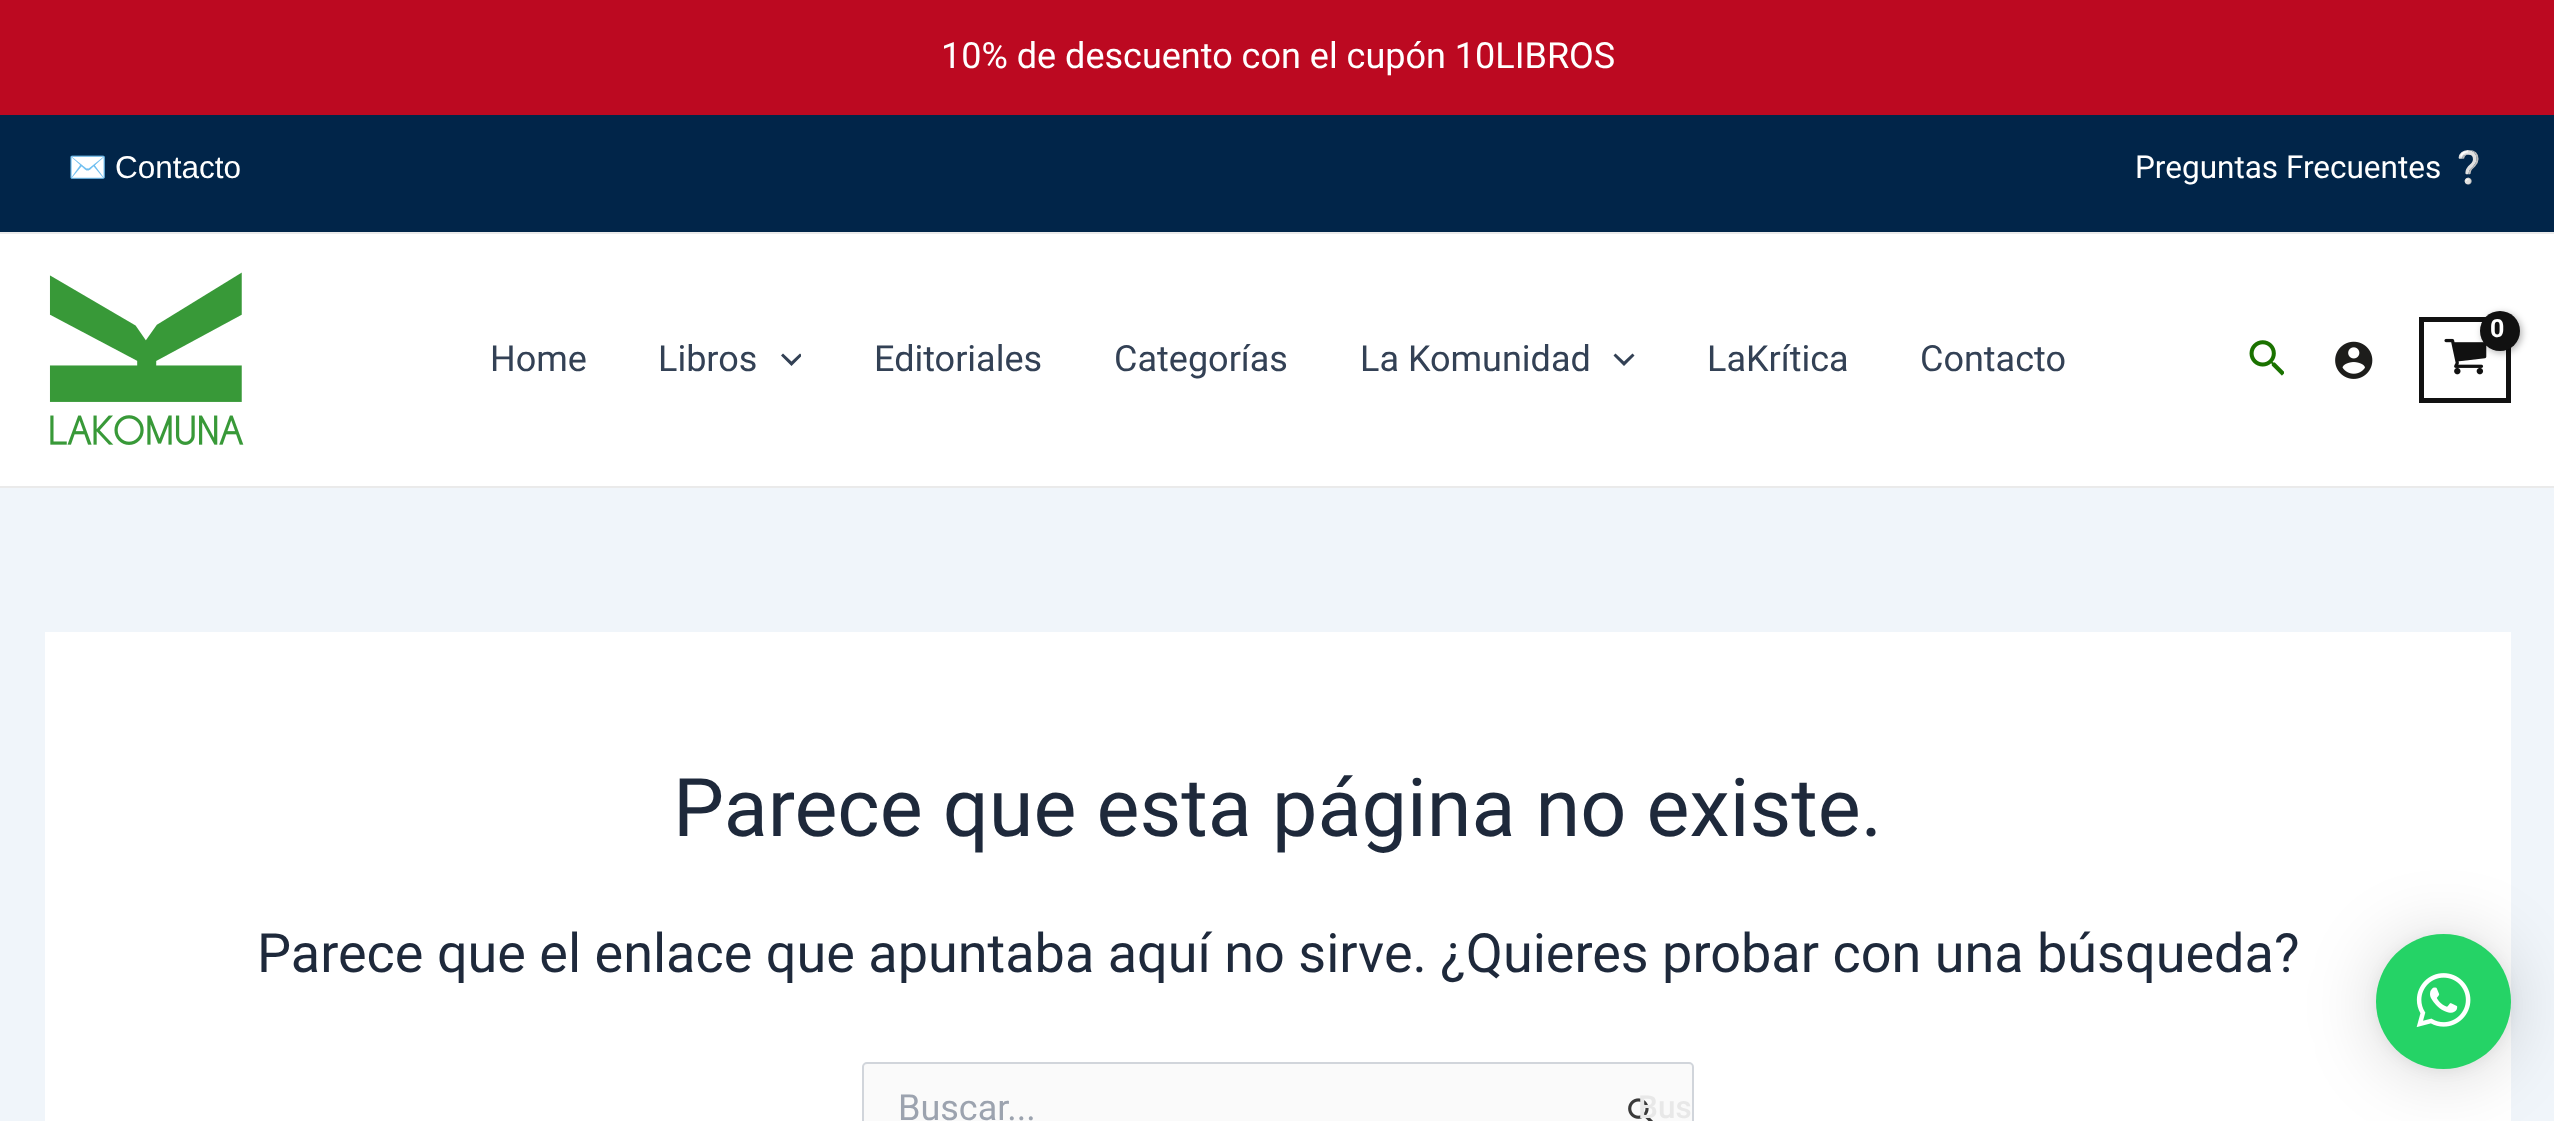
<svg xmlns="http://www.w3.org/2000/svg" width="2554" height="1121">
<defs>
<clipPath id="clip1"><rect x="781" y="349" width="20" height="22"/></clipPath>
</defs>
<rect width="100%" height="100%" fill="#f0f5fa"/>
<rect width="2554" height="115" fill="#bc0921"/>
<text x="941" y="68" style="font-family:Roboto;font-size:36px;fill:#fff">10% de descuento con el cupón 10LIBROS</text>
<rect y="115" width="2554" height="117" fill="#012549"/>
<rect y="232" width="2554" height="2" fill="#eaeaea"/>
<text x="68" y="178" style="font-family:Noto Color Emoji;font-size:31.5px;fill:#fff">✉️</text>
<text x="115" y="178" style="font-family:Liberation Sans;font-size:31.5px;fill:#fff">Contacto</text>
<text x="2135" y="178" style="font-family:Roboto;font-size:31.5px;fill:#fff">Preguntas Frecuentes</text>
<text x="2449" y="178" style="font-family:Noto Color Emoji;font-size:31.5px;fill:#fff">❔</text>
<rect y="234" width="2554" height="252" fill="#fff"/>
<rect y="486" width="2554" height="2" fill="#eaeaea"/>
<image x="49" y="272" width="195" height="173" href="media/1.png"/>
<rect x="2421.5" y="319.5" width="87" height="81" fill="none" stroke="#111" stroke-width="5"/>
<image x="2444" y="338" width="43" height="37" href="media/2.png"/>
<rect x="2482" y="313" width="40" height="40" rx="20" fill="#0000004d" filter="blur(3.5px)"/>
<circle cx="2500" cy="331" r="20" fill="#111"/>
<text x="2490" y="337" style="font-family:Roboto;font-size:25px;font-weight:bold;letter-spacing:-1px;fill:#fff">0</text>
<image x="2249" y="340" width="35" height="36" href="media/3.png"/>
<image x="2335" y="341" width="38" height="38" href="media/4.png"/>
<text x="490" y="371" style="font-family:Roboto;font-size:36px;fill:#334155">Home</text>
<text x="658" y="371" style="font-family:Roboto;font-size:36px;fill:#334155">Libros</text>
<g clip-path="url(#clip1)">
<path d="M781 355.5l10.5 10.5l10.5-10.5l-2-2l-8.5 8l-8.5-8z" fill="#334155"/>
</g>
<text x="874" y="371" style="font-family:Roboto;font-size:36px;fill:#334155">Editoriales</text>
<text x="1114" y="371" style="font-family:Roboto;font-size:36px;fill:#334155">Categorías</text>
<text x="1360" y="371" style="font-family:Roboto;font-size:36px;fill:#334155">La Komunidad</text>
<path d="M1613.5 355.5l10.5 10.5l10.5-10.5l-2-2l-8.5 8l-8.5-8z" fill="#334155"/>
<text x="1707" y="371" style="font-family:Roboto;font-size:36px;fill:#334155">LaKrítica</text>
<text x="1920" y="371" style="font-family:Roboto;font-size:36px;fill:#334155">Contacto</text>
<rect x="45" y="632" width="2466" height="489" fill="#fff"/>
<text x="673" y="836" style="font-family:Roboto;font-size:81px;fill:#1e293b">Parece que esta página no existe.</text>
<text x="257" y="972" style="font-family:Roboto;font-size:54px;fill:#1e293b">Parece que el enlace que apuntaba aquí no sirve. ¿Quieres probar con una búsqueda?</text>
<rect x="863" y="1063" width="830" height="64" rx="4" fill="#fafafa" stroke="#d1d5db" stroke-width="2"/>
<text x="898" y="1120" style="font-family:Roboto;font-size:36px;fill:#9ca3af">Buscar...</text>
<image x="1628" y="1098" width="25" height="23" href="media/5.png"/>
<text x="1638" y="1118" style="font-family:Roboto;font-size:31.5px;font-weight:500;fill:#e8e8e8">Bus</text>
<rect x="2376" y="938" width="135" height="135" rx="67.5" fill="#00000029" filter="blur(36px)"/>
<rect x="2376" y="936" width="135" height="135" rx="67.5" fill="#0000000f" filter="blur(7px)"/>
<circle cx="2443.5" cy="1001.5" r="67.5" fill="#25d366"/>
<image x="2416" y="973" width="55" height="55" href="media/6.png"/>
</svg>
